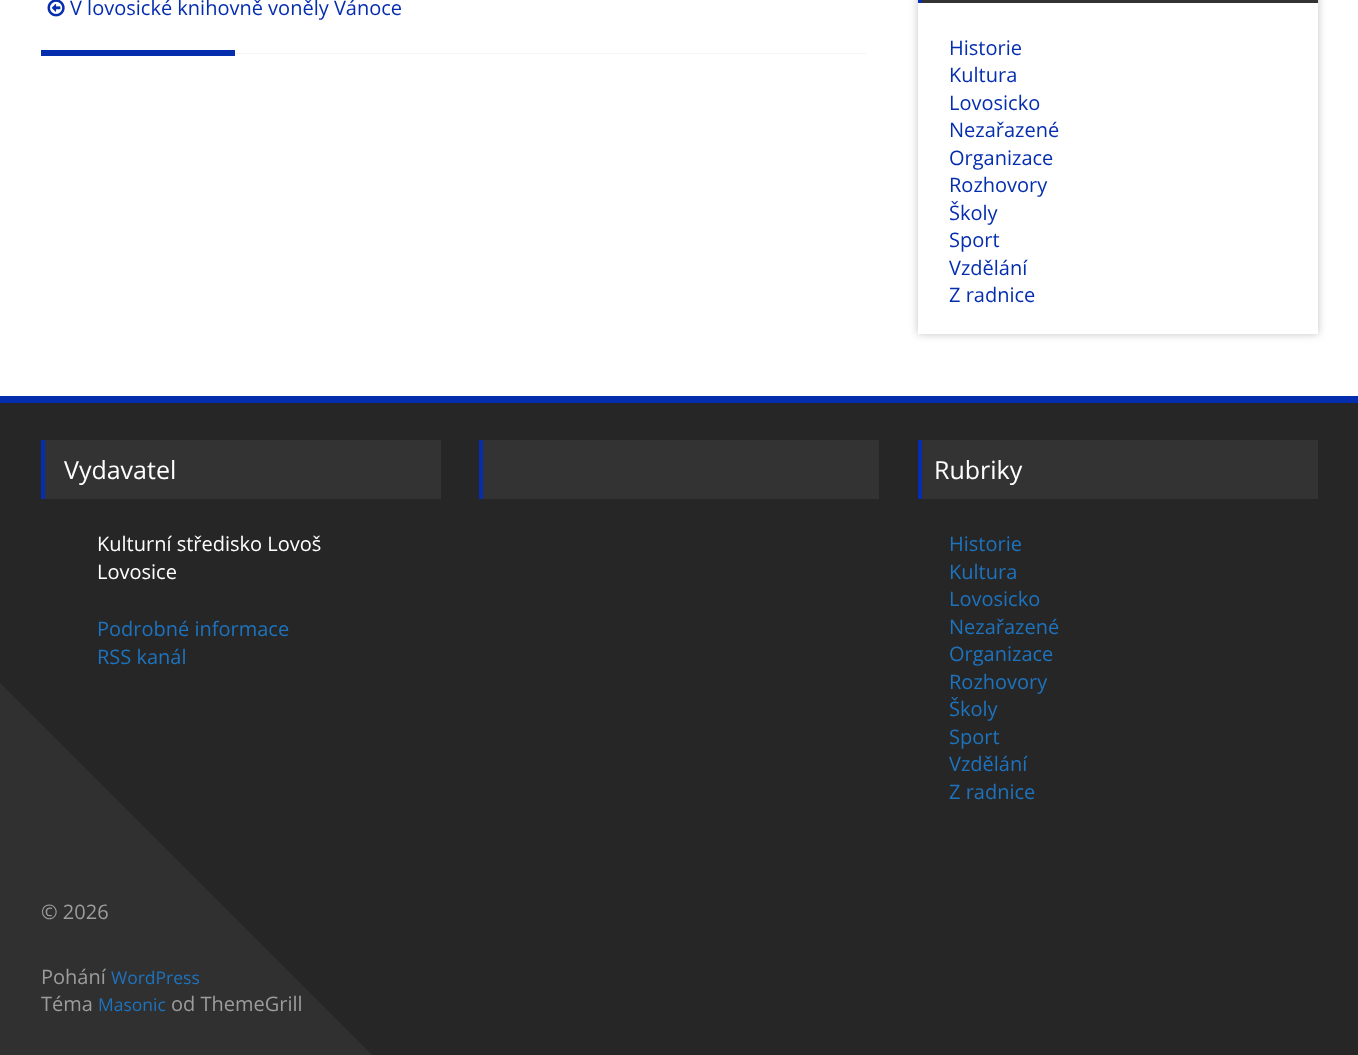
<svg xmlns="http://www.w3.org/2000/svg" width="1358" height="1055">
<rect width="100%" height="100%" fill="#fff"/>
<image x="47" y="0" width="18" height="17" href="media/1.png"/>
<text x="70" y="15" style="font-family:Open Sans;font-size:20px;fill:#052eaf">V lovosické knihovně voněly Vánoce</text>
<rect x="41" y="50" width="194" height="6" fill="#052eaf"/>
<rect x="235" y="53" width="631" height="1" fill="#f4f4f4"/>
<rect x="918" y="-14" width="400" height="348" fill="#c2c2c2" filter="blur(4.5px)"/>
<rect x="918" y="3" width="400" height="331" fill="#fff"/>
<rect x="918" width="400" height="3" fill="#333"/>
<rect x="918" width="4" height="3" fill="#052eaf"/>
<text x="949" y="55" style="font-family:Open Sans;font-size:20px;fill:#052eaf">Historie</text>
<text x="949" y="82" style="font-family:Open Sans;font-size:20px;fill:#052eaf">Kultura</text>
<text x="949" y="110" style="font-family:Open Sans;font-size:20px;fill:#052eaf">Lovosicko</text>
<text x="949" y="137" style="font-family:Open Sans;font-size:20px;fill:#052eaf">Nezařazené</text>
<text x="949" y="165" style="font-family:Open Sans;font-size:20px;fill:#052eaf">Organizace</text>
<text x="949" y="192" style="font-family:Open Sans;font-size:20px;fill:#052eaf">Rozhovory</text>
<text x="949" y="220" style="font-family:Open Sans;font-size:20px;fill:#052eaf">Školy</text>
<text x="949" y="247" style="font-family:Open Sans;font-size:20px;fill:#052eaf">Sport</text>
<text x="949" y="275" style="font-family:Open Sans;font-size:20px;fill:#052eaf">Vzdělání</text>
<text x="949" y="302" style="font-family:Open Sans;font-size:20px;fill:#052eaf">Z radnice</text>
<rect y="403" width="1358" height="652" fill="#262626"/>
<rect y="396" width="1358" height="7" fill="#052eaf"/>
<rect x="45" y="440" width="396" height="59" fill="#333"/>
<rect x="41" y="440" width="4" height="59" fill="#052eaf"/>
<text x="64" y="479" style="font-family:Open Sans;font-size:25px;fill:#fff">Vydavatel</text>
<text x="97" y="551" style="font-family:Open Sans;font-size:20px;fill:#fff">Kulturní středisko Lovoš</text>
<text x="97" y="579" style="font-family:Open Sans;font-size:20px;fill:#fff">Lovosice</text>
<text x="97" y="636" style="font-family:Open Sans;font-size:20px;fill:#1e73be">Podrobné informace</text>
<text x="97" y="664" style="font-family:Open Sans;font-size:20px;fill:#1e73be">RSS kanál</text>
<rect x="483" y="440" width="396" height="59" fill="#333"/>
<rect x="479" y="440" width="4" height="59" fill="#052eaf"/>
<rect x="922" y="440" width="396" height="59" fill="#333"/>
<rect x="918" y="440" width="4" height="59" fill="#052eaf"/>
<text x="934" y="479" style="font-family:Open Sans;font-size:25px;fill:#fff">Rubriky</text>
<text x="949" y="551" style="font-family:Open Sans;font-size:20px;fill:#1e73be">Historie</text>
<text x="949" y="579" style="font-family:Open Sans;font-size:20px;fill:#1e73be">Kultura</text>
<text x="949" y="606" style="font-family:Open Sans;font-size:20px;fill:#1e73be">Lovosicko</text>
<text x="949" y="634" style="font-family:Open Sans;font-size:20px;fill:#1e73be">Nezařazené</text>
<text x="949" y="661" style="font-family:Open Sans;font-size:20px;fill:#1e73be">Organizace</text>
<text x="949" y="689" style="font-family:Open Sans;font-size:20px;fill:#1e73be">Rozhovory</text>
<text x="949" y="716" style="font-family:Open Sans;font-size:20px;fill:#1e73be">Školy</text>
<text x="949" y="744" style="font-family:Open Sans;font-size:20px;fill:#1e73be">Sport</text>
<text x="949" y="771" style="font-family:Open Sans;font-size:20px;fill:#1e73be">Vzdělání</text>
<text x="949" y="799" style="font-family:Open Sans;font-size:20px;fill:#1e73be">Z radnice</text>
<path d="M-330 353l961 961l-442 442l-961-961z" fill="#303030"/>
<text x="41" y="919" style="font-family:Open Sans;font-size:20px;fill:#9c9c9c">© 2026</text>
<text x="41" y="984" style="font-family:Open Sans;font-size:20px;fill:#9c9c9c">Pohání</text>
<text x="111" y="984" style="font-family:Open Sans;font-size:17.5px;fill:#1e73be">WordPress</text>
<text x="41" y="1011" style="font-family:Open Sans;font-size:20px;fill:#9c9c9c">Téma</text>
<text x="98" y="1011" style="font-family:Open Sans;font-size:17.5px;fill:#1e73be">Masonic</text>
<text x="171" y="1011" style="font-family:Open Sans;font-size:20px;fill:#9c9c9c">od ThemeGrill</text>
</svg>
